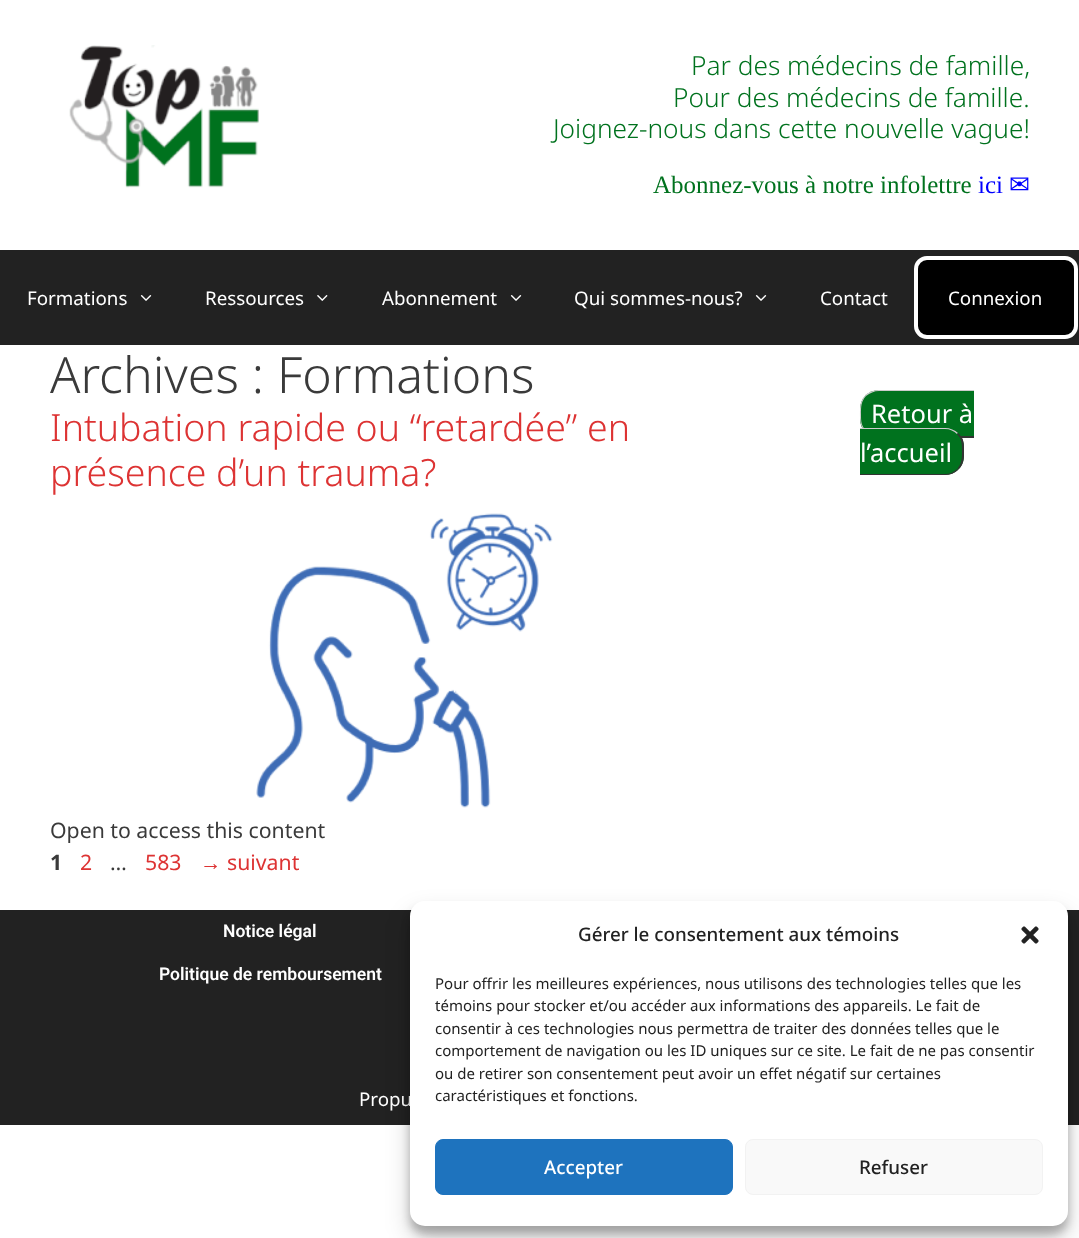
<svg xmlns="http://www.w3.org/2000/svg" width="1079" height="1238">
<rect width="100%" height="100%" fill="#fff"/>
<image x="69" y="45" width="190" height="143" href="media/1.png"/>
<text x="691" y="75" style="font-family:Noto Sans;font-size:26.25px;font-weight:300;fill:#00721e">Par des médecins de famille,</text>
<text x="673" y="107" style="font-family:Noto Sans;font-size:26.25px;font-weight:300;fill:#00721e">Pour des médecins de famille.</text>
<text x="553" y="138" style="font-family:Noto Sans;font-size:26.25px;font-weight:300;fill:#00721e">Joignez-nous dans cette nouvelle vague!</text>
<text x="653" y="193" style="font-family:Liberation Serif;font-size:25px;fill:#00721e">Abonnez-vous à notre infolettre</text>
<text x="978" y="193" style="font-family:Liberation Serif;font-size:25px;fill:#00f">ici</text>
<text x="1009" y="193" style="font-family:DejaVu Sans;font-size:25px;fill:#00f">✉</text>
<rect y="250" width="1079" height="95" fill="#222"/>
<text x="27" y="305" style="font-family:Noto Sans;font-size:18.75px;fill:#fff">Formations</text>
<image x="140" y="295" width="12" height="6" href="media/2.png"/>
<text x="205" y="305" style="font-family:Noto Sans;font-size:18.75px;fill:#fff">Ressources</text>
<image x="317" y="295" width="11" height="6" href="media/3.png"/>
<text x="382" y="305" style="font-family:Noto Sans;font-size:18.75px;fill:#fff">Abonnement</text>
<image x="510" y="295" width="12" height="6" href="media/2.png"/>
<text x="574" y="305" style="font-family:Noto Sans;font-size:18.75px;fill:#fff">Qui sommes-nous?</text>
<image x="755" y="295" width="12" height="6" href="media/2.png"/>
<text x="820" y="305" style="font-family:Noto Sans;font-size:18.75px;fill:#fff">Contact</text>
<rect x="916" y="258" width="160" height="79" rx="11" fill="#000" stroke="#fff" stroke-width="4"/>
<text x="948" y="305" style="font-family:Noto Sans;font-size:18.75px;fill:#fff">Connexion</text>
<text x="50" y="393" style="font-family:Noto Sans;font-size:50px;font-weight:300;fill:#3a3a3a">Archives : Formations</text>
<text x="50" y="441" style="font-family:Noto Sans;font-size:37.5px;font-weight:300;fill:#d33">Intubation rapide ou “retardée” en</text>
<text x="50" y="486" style="font-family:Noto Sans;font-size:37.5px;font-weight:300;fill:#d33">présence d’un trauma?</text>
<image x="256" y="513" width="297" height="295" href="media/4.png"/>
<text x="50" y="838" style="font-family:Noto Sans;font-size:21.25px;fill:#3a3a3a">Open to access this content</text>
<text x="50" y="870" style="font-family:Noto Sans;font-size:21.25px;font-weight:bold;fill:#3a3a3a">1</text>
<text x="80" y="870" style="font-family:Noto Sans;font-size:21.25px;fill:#d33">2</text>
<text x="110" y="870" style="font-family:Noto Sans;font-size:21.25px;fill:#3a3a3a">…</text>
<text x="145" y="870" style="font-family:Noto Sans;font-size:21.25px;fill:#d33">583</text>
<text x="200" y="870" style="font-family:Liberation Sans;font-size:21.25px;fill:#d33">→</text>
<text x="227" y="870" style="font-family:Noto Sans;font-size:21.25px;fill:#d33">suivant</text>
<path d="M879 390h95v48h-95c-10.5 0-19-8.5-19-19v-10c0-10.5 8.5-19 19-19z" fill="#00721e"/>
<text x="871" y="423" style="font-family:Noto Sans;font-size:25.5px;fill:#fff">Retour à</text>
<path d="M879 390c-5 0-10 2-14 5l1 1c4-3 8-5 13-5h95v-1z" fill="#ccc"/>
<path d="M974 438h-99c-4-1-7-3-10-6l1-1c4 3 8 5 13 5h95z" fill="#333"/>
<path d="M860 409c0 8.5-1 16.5 5.5 23l1-1c-5.5-5-5.5-10-5.5-17c0-7 0-12.5 5-18l-.5-.5c-3.5 3.5-5.5 8-5.5 13.5z" fill="#ccc"/>
<path d="M860 428h85c10.5 0 19 8.5 19 19v9c0 10.5-8.5 19-19 19h-85z" fill="#00721e"/>
<path d="M860 429h85c5 0 9 2 12 5l1-1c-3-3-8-5-13-5h-85z" fill="#ccc"/>
<text x="860" y="462" style="font-family:Noto Sans;font-size:25.5px;fill:#fff">l’accueil</text>
<path d="M958 433c6.5 6 6 10.5 6 18c0 8 0 13-5.5 18.5l-1-1c4.5-5 4.5-11 4.5-17.5c0-6.5 0-12-5-17z" fill="#333"/>
<path d="M860 474v1h85c5 0 10-2 13-5l-1-1c-3 3-7 5-12 5z" fill="#333"/>
<rect y="910" width="412" height="43" fill="#222"/>
<text x="223" y="937" style="font-family:Roboto;font-size:17.5px;font-weight:600;fill:#fff">Notice légal</text>
<rect x="1066" y="910" width="13" height="43" fill="#222"/>
<rect y="953" width="410" height="42" fill="#222"/>
<text x="159" y="980" style="font-family:Roboto;font-size:17.5px;font-weight:600;fill:#fff">Politique de remboursement</text>
<rect x="1068" y="953" width="11" height="42" fill="#222"/>
<rect y="995" width="1079" height="130" fill="#222"/>
<text x="359" y="1106" style="font-family:Noto Sans;font-size:18.75px;fill:#fff">Propu</text>
<rect x="410" y="909" width="658" height="325" rx="15" fill="#0000003b" filter="blur(4px)"/>
<rect x="410" y="914" width="658" height="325" rx="15" fill="#00000030" filter="blur(12.5px)"/>
<rect x="410" y="901" width="658" height="325" rx="15" fill="#fff"/>
<text x="578" y="941" style="font-family:Noto Sans;font-size:18.75px;font-weight:500;fill:#222">Gérer le consentement aux témoins</text>
<image x="1021" y="926" width="18" height="18" href="media/5.png"/>
<text x="435" y="989" style="font-family:Noto Sans;font-size:15px;fill:#222">Pour offrir les meilleures expériences, nous utilisons des technologies telles que les</text>
<text x="435" y="1011" style="font-family:Noto Sans;font-size:15px;fill:#222">témoins pour stocker et/ou accéder aux informations des appareils. Le fait de</text>
<text x="435" y="1034" style="font-family:Noto Sans;font-size:15px;fill:#222">consentir à ces technologies nous permettra de traiter des données telles que le</text>
<text x="435" y="1056" style="font-family:Noto Sans;font-size:15px;fill:#222">comportement de navigation ou les ID uniques sur ce site. Le fait de ne pas consentir</text>
<text x="435" y="1079" style="font-family:Noto Sans;font-size:15px;fill:#222">ou de retirer son consentement peut avoir un effet négatif sur certaines</text>
<text x="435" y="1101" style="font-family:Noto Sans;font-size:15px;fill:#222">caractéristiques et fonctions.</text>
<rect x="435.5" y="1139.5" width="297" height="55" rx="7.5" fill="#1e73be" stroke="#1e73be"/>
<text x="544" y="1174" style="font-family:Noto Sans;font-size:18.75px;font-weight:500;fill:#fff">Accepter</text>
<rect x="745.5" y="1139.5" width="297" height="55" rx="7.5" fill="#f9f9f9" stroke="#f2f2f2"/>
<text x="859" y="1174" style="font-family:Noto Sans;font-size:18.75px;font-weight:500;fill:#222">Refuser</text>
</svg>
